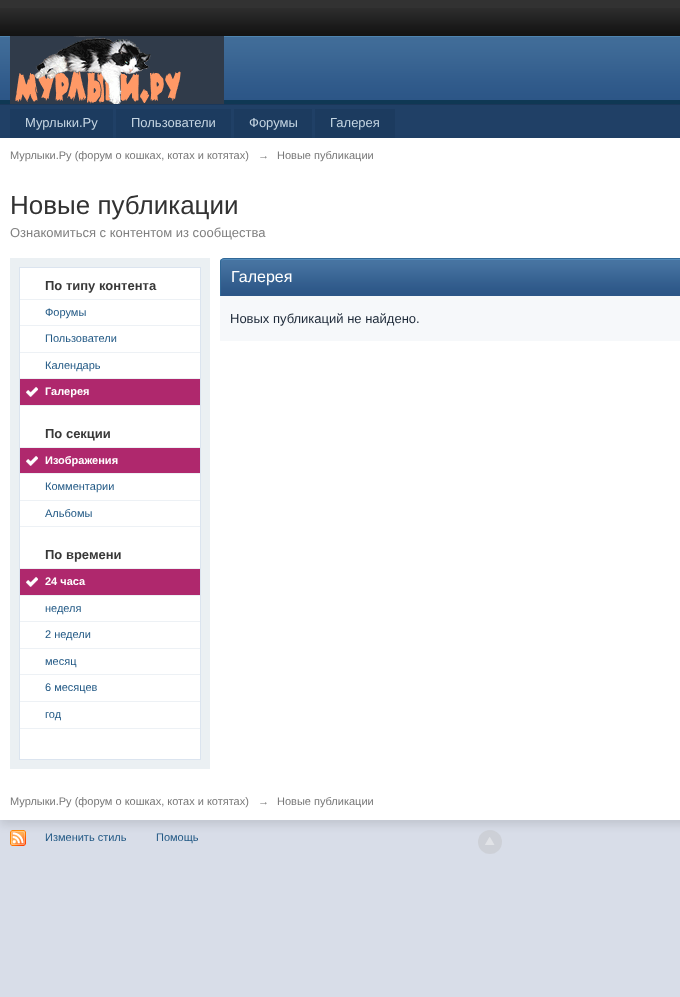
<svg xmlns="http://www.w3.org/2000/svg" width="680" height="997">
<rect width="100%" height="100%" fill="#d8dde8"/>
<rect width="680" height="8" fill="#323232"/>
<image x="0" y="8" width="680" height="28" href="media/1.png"/>
<rect y="100" width="680" height="4" fill="#0f3854"/>
<image x="0" y="36" width="680" height="64" href="media/2.png"/>
<rect y="104" width="680" height="1" fill="#1b3759"/>
<image x="10" y="36" width="214" height="68" href="media/3.png"/>
<rect y="105" width="680" height="33" fill="#204066"/>
<rect y="143" width="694" height="682" fill="#0000001a" filter="blur(4.5px)"/>
<rect x="10" y="109" width="103" height="29" fill="#1c3b5f"/>
<text x="25" y="127" style="font-family:Liberation Sans;font-size:13px;fill:#c5d5e2">Мурлыки.Ру</text>
<rect x="116" y="109" width="115" height="29" fill="#1c3b5f"/>
<text x="131" y="127" style="font-family:Liberation Sans;font-size:13px;fill:#c5d5e2">Пользователи</text>
<rect x="234" y="109" width="78" height="29" fill="#1c3b5f"/>
<text x="249" y="127" style="font-family:Liberation Sans;font-size:13px;fill:#c5d5e2">Форумы</text>
<rect x="315" y="109" width="80" height="29" fill="#1c3b5f"/>
<text x="330" y="127" style="font-family:Liberation Sans;font-size:13px;fill:#c5d5e2">Галерея</text>
<rect y="138" width="680" height="682" fill="#fff"/>
<text x="10" y="159" style="font-family:Liberation Sans;font-size:11px;fill:#777">Мурлыки.Ру (форум о кошках, котах и котятах)</text>
<text x="258" y="159" style="font-family:Liberation Sans;font-size:11px;fill:#777">→</text>
<text x="277" y="159" style="font-family:Liberation Sans;font-size:11px;fill:#777">Новые публикации</text>
<text x="10" y="214" style="font-family:Liberation Sans;font-size:26px;fill:#323232">Новые публикации</text>
<text x="10" y="237" style="font-family:Liberation Sans;font-size:13px;fill:#7f7f7f">Ознакомиться с контентом из сообщества</text>
<rect x="10" y="258" width="200" height="511" fill="#ebf0f3"/>
<rect x="19.5" y="267.5" width="181" height="492" fill="#fff" stroke="#dbe4ef"/>
<text x="45" y="290" style="font-family:Liberation Sans;font-size:13px;font-weight:bold;fill:#383838">По типу контента</text>
<rect x="20" y="299" width="180" height="1" fill="#edf1f5"/>
<rect x="20" y="325" width="180" height="1" fill="#edf1f5"/>
<text x="45" y="316" style="font-family:Liberation Sans;font-size:11px;fill:#225985">Форумы</text>
<rect x="20" y="352" width="180" height="1" fill="#edf1f5"/>
<text x="45" y="342" style="font-family:Liberation Sans;font-size:11px;fill:#225985">Пользователи</text>
<rect x="20" y="378" width="180" height="1" fill="#edf1f5"/>
<text x="45" y="369" style="font-family:Liberation Sans;font-size:11px;fill:#225985">Календарь</text>
<rect x="20" y="405" width="180" height="1" fill="#edf1f5"/>
<rect x="20" y="379" width="180" height="26" fill="#af286d"/>
<image x="26" y="387" width="12" height="10" href="media/4.png"/>
<text x="45" y="395" style="font-family:Liberation Sans;font-size:11px;font-weight:bold;fill:#fff">Галерея</text>
<text x="45" y="438" style="font-family:Liberation Sans;font-size:13px;font-weight:bold;fill:#383838">По секции</text>
<rect x="20" y="447" width="180" height="1" fill="#edf1f5"/>
<rect x="20" y="473" width="180" height="1" fill="#edf1f5"/>
<rect x="20" y="448" width="180" height="25" fill="#af286d"/>
<image x="26" y="456" width="12" height="10" href="media/4.png"/>
<text x="45" y="464" style="font-family:Liberation Sans;font-size:11px;font-weight:bold;fill:#fff">Изображения</text>
<rect x="20" y="500" width="180" height="1" fill="#edf1f5"/>
<text x="45" y="490" style="font-family:Liberation Sans;font-size:11px;fill:#225985">Комментарии</text>
<rect x="20" y="526" width="180" height="1" fill="#edf1f5"/>
<text x="45" y="517" style="font-family:Liberation Sans;font-size:11px;fill:#225985">Альбомы</text>
<text x="45" y="559" style="font-family:Liberation Sans;font-size:13px;font-weight:bold;fill:#383838">По времени</text>
<rect x="20" y="568" width="180" height="1" fill="#edf1f5"/>
<rect x="20" y="595" width="180" height="1" fill="#edf1f5"/>
<rect x="20" y="569" width="180" height="26" fill="#af286d"/>
<image x="26" y="577" width="12" height="10" href="media/4.png"/>
<text x="45" y="585" style="font-family:Liberation Sans;font-size:11px;font-weight:bold;fill:#fff">24 часа</text>
<rect x="20" y="621" width="180" height="1" fill="#edf1f5"/>
<text x="45" y="612" style="font-family:Liberation Sans;font-size:11px;fill:#225985">неделя</text>
<rect x="20" y="648" width="180" height="1" fill="#edf1f5"/>
<text x="45" y="638" style="font-family:Liberation Sans;font-size:11px;fill:#225985">2 недели</text>
<rect x="20" y="674" width="180" height="1" fill="#edf1f5"/>
<text x="45" y="665" style="font-family:Liberation Sans;font-size:11px;fill:#225985">месяц</text>
<rect x="20" y="701" width="180" height="1" fill="#edf1f5"/>
<text x="45" y="691" style="font-family:Liberation Sans;font-size:11px;fill:#225985">6 месяцев</text>
<rect x="20" y="728" width="180" height="1" fill="#edf1f5"/>
<text x="45" y="718" style="font-family:Liberation Sans;font-size:11px;fill:#225985">год</text>
<rect x="221" y="294" width="459" height="2" fill="#2c5687"/>
<image x="220" y="259" width="460" height="35" href="media/5.png"/>
<path d="M224 260h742c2 0 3 1 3 3c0-2-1-4-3-4h-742c-2 0-3 2-3 4c0-2 1-3 3-3z" fill="#528cbc"/>
<path d="M224 258h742c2 0 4 2 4 4v34h-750v-34c0-2 2-4 4-4zm0 1h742c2 0 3 1 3 3v34h-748v-34c0-2 1-3 3-3z" fill="#316897" fill-rule="evenodd"/>
<text x="231" y="282" style="font-family:Liberation Sans;font-size:16px;fill:#fff">Галерея</text>
<rect x="220" y="296" width="460" height="45" fill="#f6f8fa"/>
<text x="230" y="323" style="font-family:Liberation Sans;font-size:13px;fill:#1c2837">Новых публикаций не найдено.</text>
<text x="10" y="805" style="font-family:Liberation Sans;font-size:11px;fill:#777">Мурлыки.Ру (форум о кошках, котах и котятах)</text>
<text x="258" y="805" style="font-family:Liberation Sans;font-size:11px;fill:#777">→</text>
<text x="277" y="805" style="font-family:Liberation Sans;font-size:11px;fill:#777">Новые публикации</text>
<image x="10" y="830" width="16" height="16" href="media/6.png"/>
<text x="45" y="841" style="font-family:Liberation Sans;font-size:11px;fill:#225985">Изменить стиль</text>
<text x="156" y="841" style="font-family:Liberation Sans;font-size:11px;fill:#225985">Помощь</text>
<circle cx="490" cy="842" r="12" fill="#bdbdbd66"/>
<image x="485" y="837" width="10" height="8" href="media/7.png"/>
</svg>
